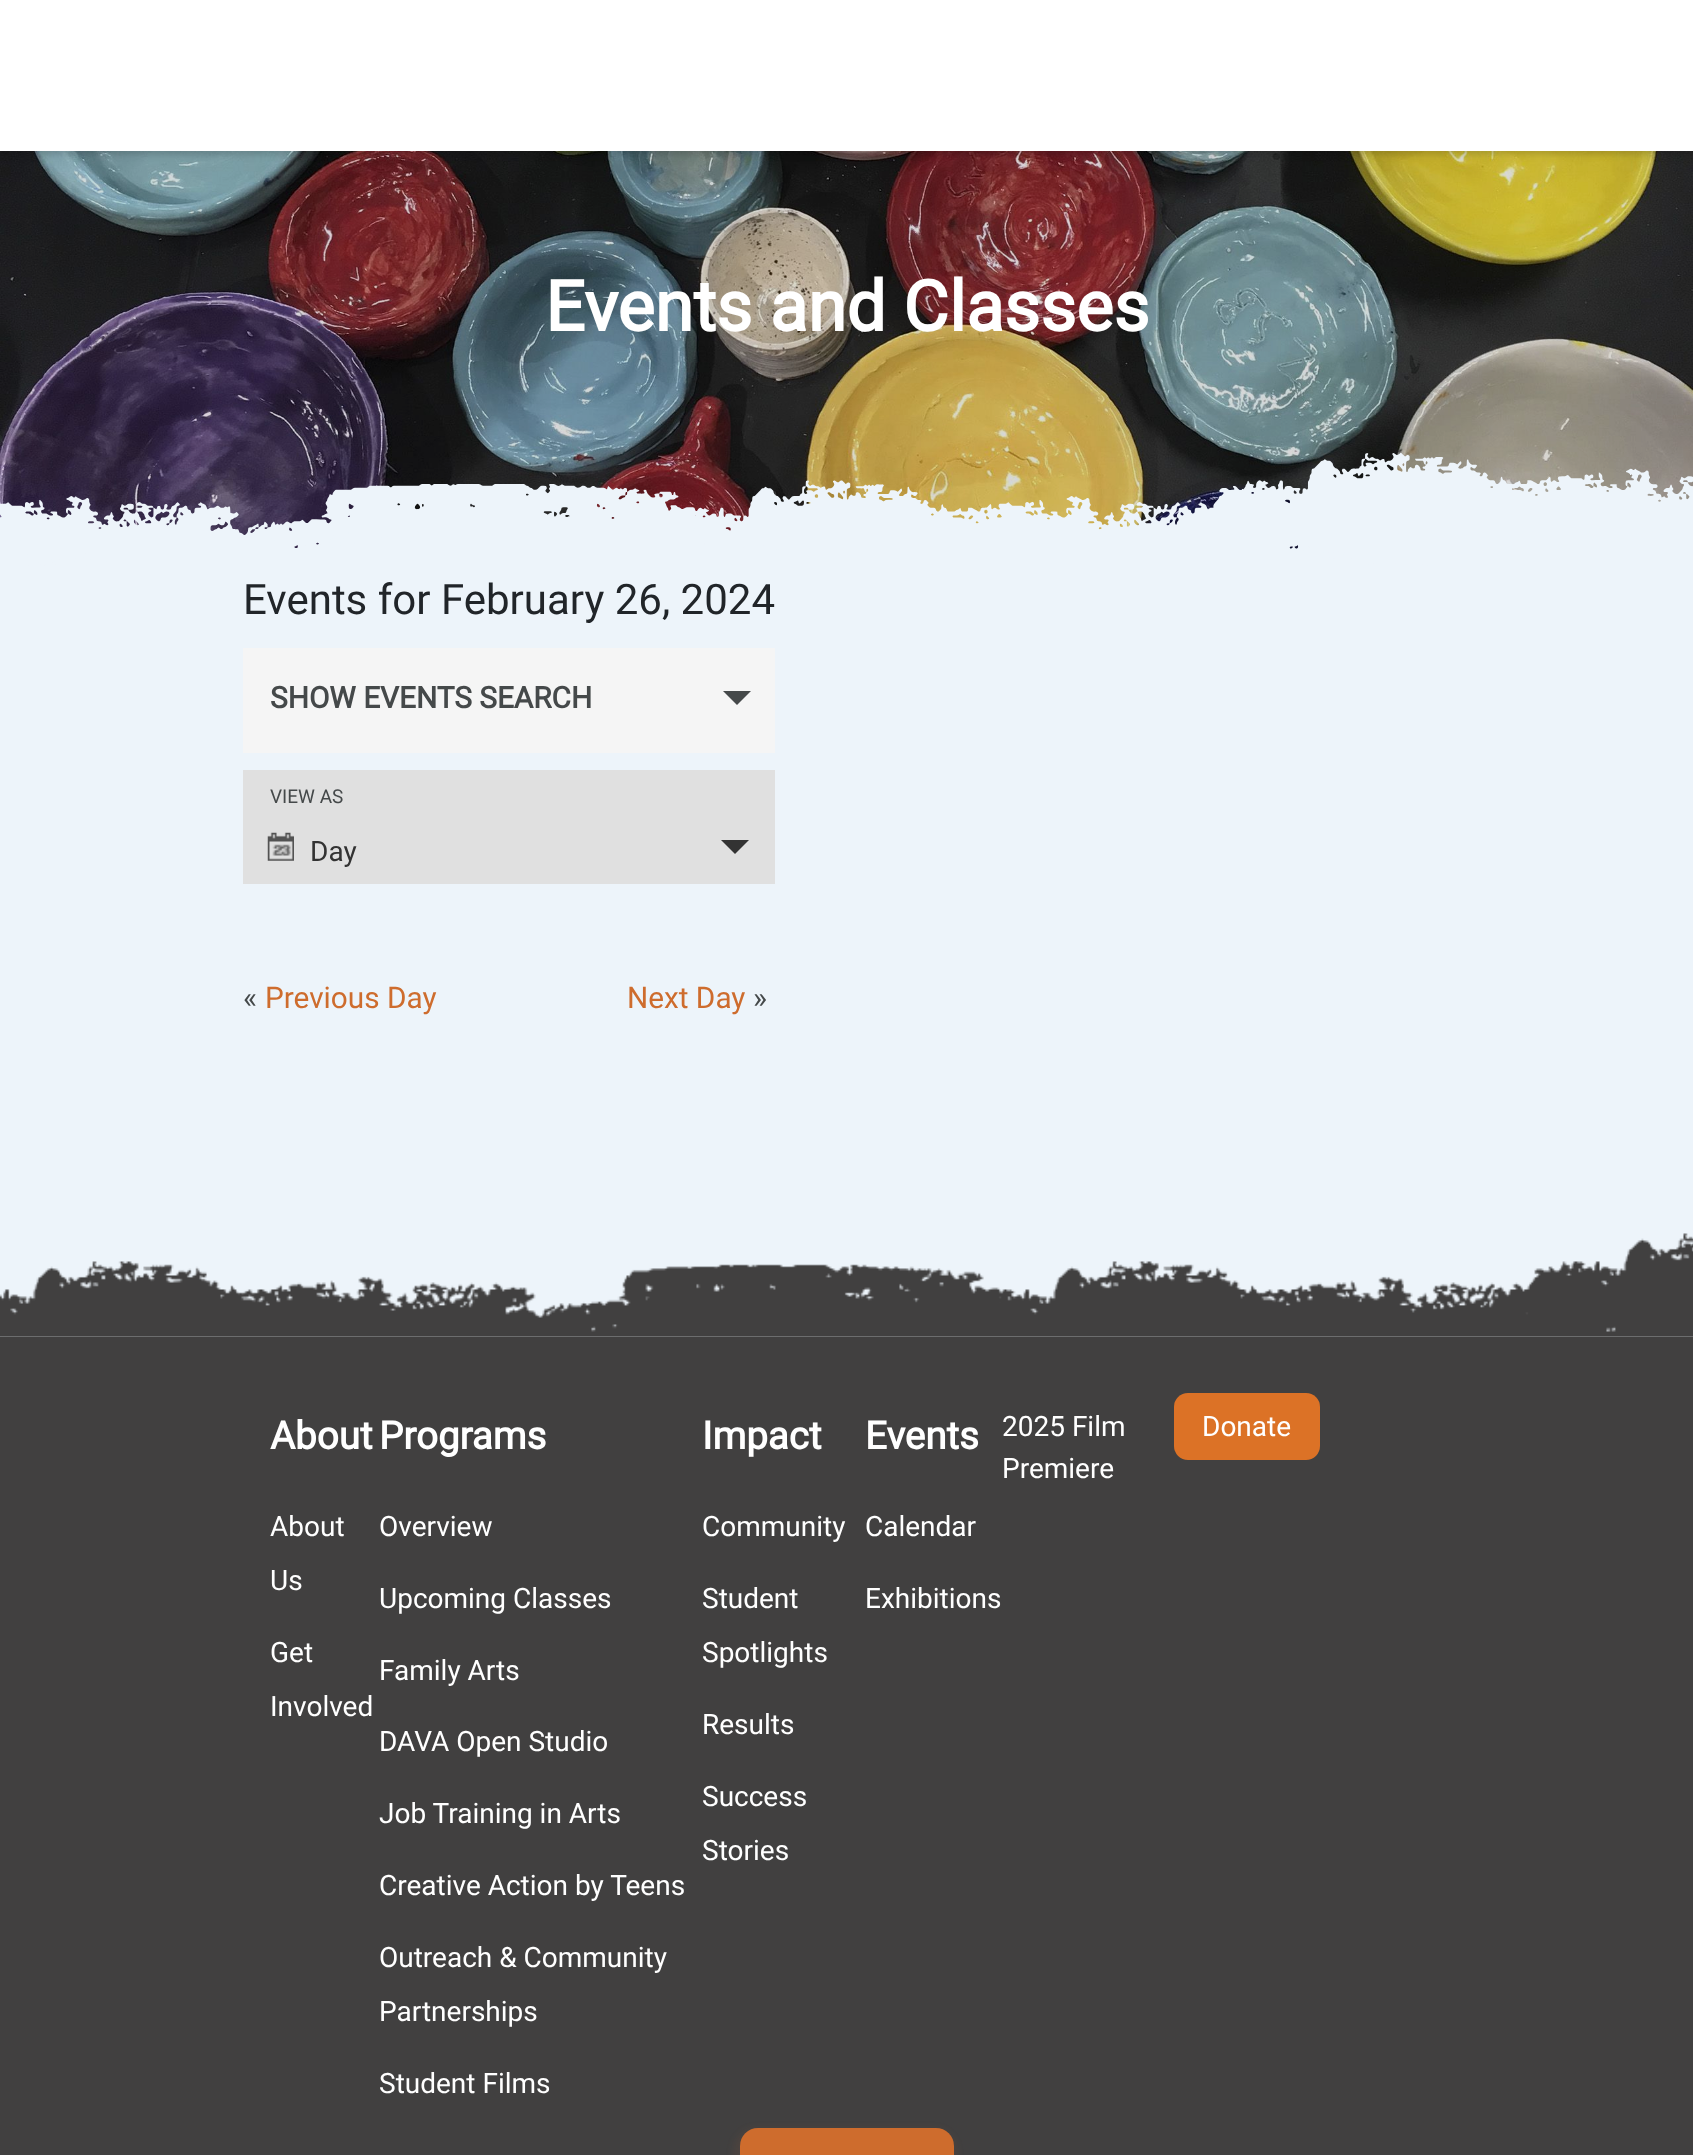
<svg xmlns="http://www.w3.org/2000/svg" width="1693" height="2155">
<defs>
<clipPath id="clip1"><path d="M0 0h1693v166h-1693zm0 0h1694v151h-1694z" clip-rule="evenodd"/></clipPath>
</defs>
<rect width="100%" height="100%" fill="#edf4fa"/>
<rect width="1693" height="151" fill="#fff"/>
<image x="0" y="151" width="1693" height="398" href="media/1.png"/>
<g clip-path="url(#clip1)">
<rect y="4" width="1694" height="150" fill="#0000002b" filter="blur(3.5px)"/>
</g>
<text x="545" y="331" style="font-family:Roboto;font-size:70px;font-weight:bold;fill:#fff">Events and Classes</text>
<image x="0" y="453" width="1693" height="114" href="media/2.png"/>
<text x="243" y="614" style="font-family:Roboto;font-size:42px;fill:#212529">Events for February 26, 2024</text>
<rect x="243" y="648" width="532" height="105" fill="#f5f5f5"/>
<text x="270" y="708" style="font-family:Roboto;font-size:29.75px;font-weight:bold;fill:#45494a">SHOW EVENTS SEARCH</text>
<path d="M723 691h28l-14 14z" fill="#45494a"/>
<rect x="243" y="770" width="532" height="114" fill="#e0e0e0"/>
<text x="270" y="803" style="font-family:Roboto;font-size:19px;fill:#45494a">VIEW AS</text>
<image x="267" y="832" width="27" height="29" href="media/3.png"/>
<text x="310" y="861" style="font-family:Roboto;font-size:28px;fill:#333">Day</text>
<path d="M721 840h28l-14 14z" fill="#333"/>
<text x="243" y="1008" style="font-family:Roboto;font-size:29.75px;fill:#45494a">«</text>
<text x="265" y="1008" style="font-family:Roboto;font-size:29.75px;fill:#ce6c2d">Previous Day</text>
<text x="627" y="1008" style="font-family:Roboto;font-size:29.75px;fill:#ce6c2d">Next Day</text>
<text x="753" y="1008" style="font-family:Roboto;font-size:29.75px;fill:#45494a">»</text>
<rect y="1337" width="1693" height="818" fill="#414040"/>
<image x="0" y="1233" width="1693" height="104" href="media/4.png"/>
<text x="270" y="1449" style="font-family:Roboto;font-size:38.5px;font-weight:bold;fill:#fff">About</text>
<text x="270" y="1536" style="font-family:Roboto;font-size:28px;fill:#fff">About</text>
<text x="270" y="1590" style="font-family:Roboto;font-size:28px;fill:#fff">Us</text>
<text x="270" y="1662" style="font-family:Roboto;font-size:28px;fill:#fff">Get</text>
<text x="270" y="1716" style="font-family:Roboto;font-size:28px;fill:#fff">Involved</text>
<text x="379" y="1449" style="font-family:Roboto;font-size:38.5px;font-weight:bold;fill:#fff">Programs</text>
<text x="379" y="1536" style="font-family:Roboto;font-size:28px;fill:#fff">Overview</text>
<text x="379" y="1608" style="font-family:Roboto;font-size:28px;fill:#fff">Upcoming Classes</text>
<text x="379" y="1680" style="font-family:Roboto;font-size:28px;fill:#fff">Family Arts</text>
<text x="379" y="1751" style="font-family:Roboto;font-size:28px;fill:#fff">DAVA Open Studio</text>
<text x="379" y="1823" style="font-family:Roboto;font-size:28px;fill:#fff">Job Training in Arts</text>
<text x="379" y="1895" style="font-family:Roboto;font-size:28px;fill:#fff">Creative Action by Teens</text>
<text x="379" y="1967" style="font-family:Roboto;font-size:28px;fill:#fff">Outreach &amp; Community</text>
<text x="379" y="2021" style="font-family:Roboto;font-size:28px;fill:#fff">Partnerships</text>
<text x="379" y="2093" style="font-family:Roboto;font-size:28px;fill:#fff">Student Films</text>
<text x="702" y="1449" style="font-family:Roboto;font-size:38.5px;font-weight:bold;fill:#fff">Impact</text>
<text x="702" y="1536" style="font-family:Roboto;font-size:28px;fill:#fff">Community</text>
<text x="702" y="1608" style="font-family:Roboto;font-size:28px;fill:#fff">Student</text>
<text x="702" y="1662" style="font-family:Roboto;font-size:28px;fill:#fff">Spotlights</text>
<text x="702" y="1734" style="font-family:Roboto;font-size:28px;fill:#fff">Results</text>
<text x="702" y="1806" style="font-family:Roboto;font-size:28px;fill:#fff">Success</text>
<text x="702" y="1860" style="font-family:Roboto;font-size:28px;fill:#fff">Stories</text>
<text x="865" y="1449" style="font-family:Roboto;font-size:38.5px;font-weight:bold;fill:#fff">Events</text>
<text x="865" y="1536" style="font-family:Roboto;font-size:28px;fill:#fff">Calendar</text>
<text x="865" y="1608" style="font-family:Roboto;font-size:28px;fill:#fff">Exhibitions</text>
<text x="1002" y="1436" style="font-family:Roboto;font-size:28px;fill:#fff">2025 Film</text>
<text x="1002" y="1478" style="font-family:Roboto;font-size:28px;fill:#fff">Premiere</text>
<rect x="1174" y="1393" width="146" height="67" rx="14" fill="#dc7226"/>
<text x="1202" y="1436" style="font-family:Roboto;font-size:28px;fill:#fff">Donate</text>
<rect x="733" y="2128" width="224" height="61" rx="23" fill="#ce6c2d14" filter="blur(3.5px)"/>
<rect x="740" y="2128" width="214" height="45" rx="18" fill="#ce6c2d"/>
</svg>
